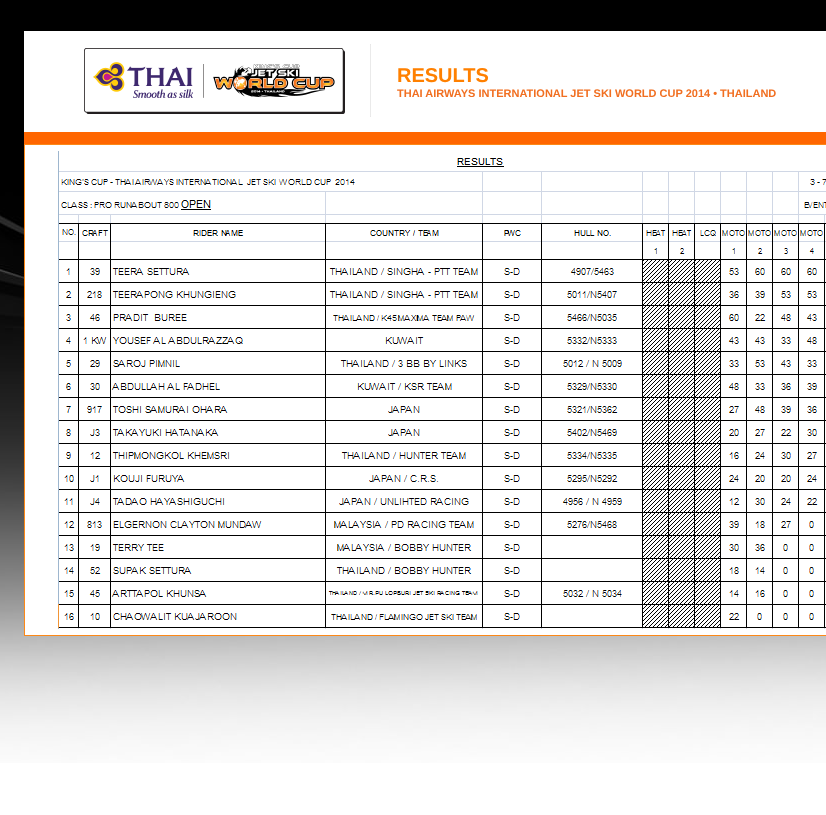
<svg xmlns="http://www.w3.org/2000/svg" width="826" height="815">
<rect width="100%" height="100%" fill="#fff"/>
<image x="0" y="0" width="826" height="763" href="media/1.png"/>
<rect x="24" y="31" width="802" height="101" fill="#fff"/>
<image x="84" y="44" width="287" height="73" href="media/2.png"/>
<text x="397" y="82" style="font-family:Liberation Sans;font-size:20px;font-weight:bold;fill:#ff8000">RESULTS</text>
<text x="397" y="97" style="font-family:Liberation Sans;font-size:11px;font-weight:bold;fill:#f16f21">THAI AIRWAYS INTERNATIONAL JET SKI WORLD CUP 2014 • THAILAND</text>
<rect x="24" y="132" width="802" height="12" fill="#f60"/>
<rect x="24.5" y="144.5" width="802" height="491" fill="#fff" stroke="#fc8817"/>
<image x="58" y="151" width="768" height="478" href="media/3.png"/>
</svg>
